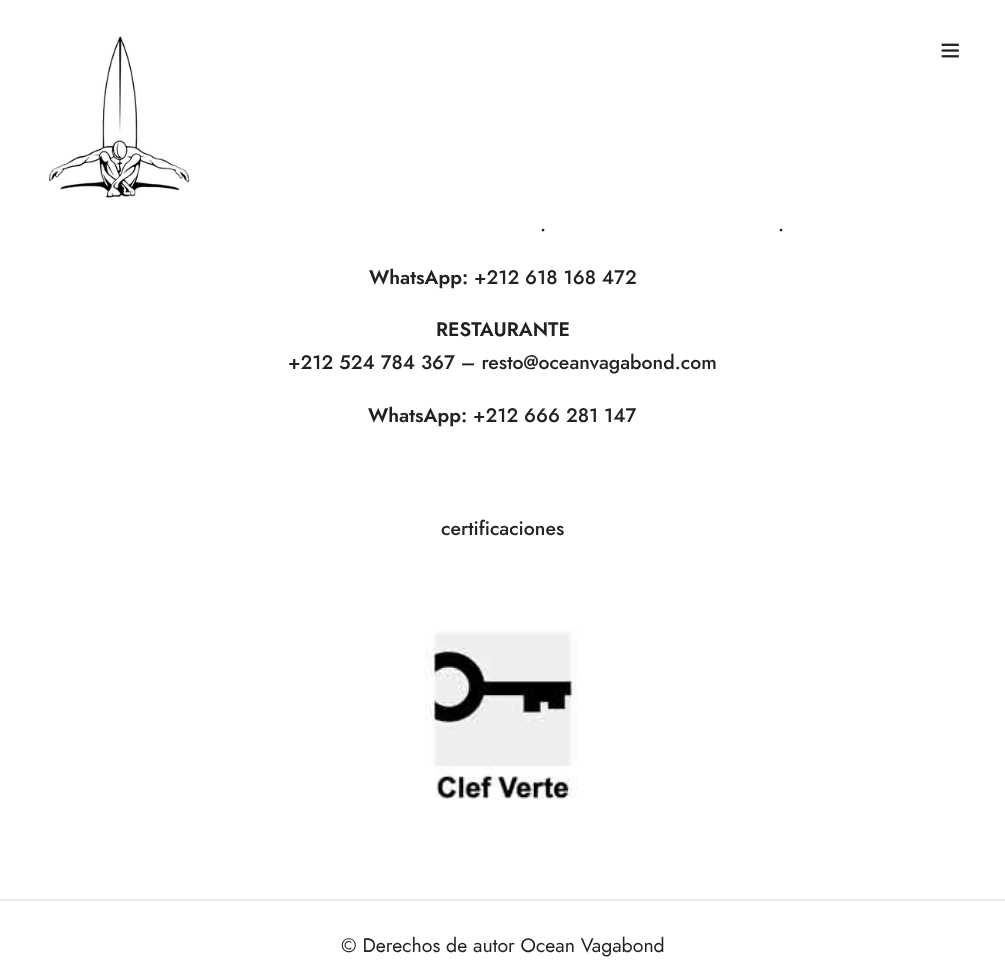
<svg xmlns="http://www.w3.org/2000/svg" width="1005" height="978">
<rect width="100%" height="100%" fill="#fff"/>
<image x="49" y="36" width="141" height="162" href="media/1.png"/>
<image x="941" y="43" width="18" height="15" href="media/2.png"/>
<text x="540" y="231" style="font-family:Jost;font-size:19.5px;font-weight:500;fill:#222">.</text>
<text x="778" y="231" style="font-family:Jost;font-size:19.5px;font-weight:500;fill:#222">.</text>
<text x="369" y="284" style="font-family:Jost;font-size:19.5px;font-weight:600;fill:#222">WhatsApp:</text>
<text x="474" y="284" style="font-family:Jost;font-size:19.5px;font-weight:500;fill:#222">+212 618 168 472</text>
<text x="436" y="336" style="font-family:Jost;font-size:19.5px;font-weight:600;fill:#222">RESTAURANTE</text>
<text x="288" y="369" style="font-family:Jost;font-size:19.5px;font-weight:500;fill:#222">+212 524 784 367 – resto@oceanvagabond.com</text>
<text x="368" y="422" style="font-family:Jost;font-size:19.5px;font-weight:600;fill:#222">WhatsApp:</text>
<text x="473" y="422" style="font-family:Jost;font-size:19.5px;font-weight:500;fill:#222">+212 666 281 147</text>
<text x="441" y="535" style="font-family:Jost;font-size:19.5px;font-weight:500;fill:#222">certificaciones</text>
<image x="425" y="629" width="153" height="170" href="media/3.png"/>
<rect y="899" width="1005" height="2" fill="#ebebeb"/>
<text x="341" y="952" style="font-family:Jost;font-size:19.5px;fill:#222">© Derechos de autor Ocean Vagabond</text>
</svg>
